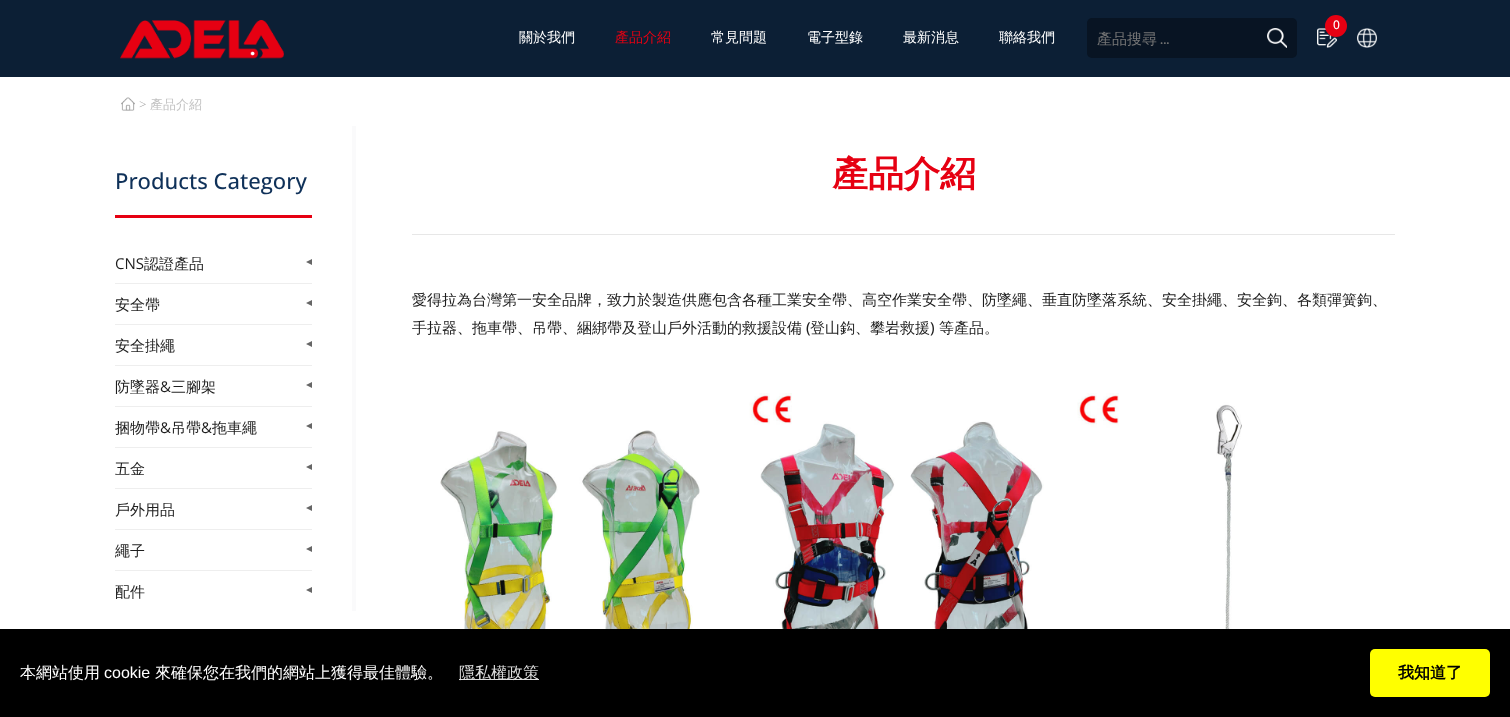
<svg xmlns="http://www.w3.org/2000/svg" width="1510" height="717">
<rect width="100%" height="100%" fill="#fff"/>
<rect width="1510" height="77" fill="#0c1f35"/>
<image x="120" y="20" width="164" height="39" href="media/1.png"/>
<text x="519" y="42" style="font-family:WenQuanYi Zen Hei;font-size:14px;font-weight:500;fill:#fff">關於我們</text>
<text x="615" y="42" style="font-family:WenQuanYi Zen Hei;font-size:14px;font-weight:500;fill:#e60012">產品介紹</text>
<text x="711" y="42" style="font-family:WenQuanYi Zen Hei;font-size:14px;font-weight:500;fill:#fff">常見問題</text>
<text x="807" y="42" style="font-family:WenQuanYi Zen Hei;font-size:14px;font-weight:500;fill:#fff">電子型錄</text>
<text x="903" y="42" style="font-family:WenQuanYi Zen Hei;font-size:14px;font-weight:500;fill:#fff">最新消息</text>
<text x="999" y="42" style="font-family:WenQuanYi Zen Hei;font-size:14px;font-weight:500;fill:#fff">聯絡我們</text>
<image x="1317" y="28" width="20" height="20" href="media/2.png"/>
<circle cx="1336" cy="26" r="11" fill="#e60012"/>
<text x="1333" y="29" style="font-family:Open Sans;font-size:12px;font-weight:500;fill:#fff">0</text>
<rect x="1087" y="18" width="210" height="40" rx="5" fill="#081423"/>
<text x="1097" y="44" style="font-family:WenQuanYi Zen Hei;font-size:15px;font-weight:500;fill:#757575">產品搜尋</text>
<text x="1160" y="44" style="font-family:Lato;font-size:15px;fill:#757575">...</text>
<image x="1267" y="28" width="20" height="20" href="media/3.png"/>
<image x="1357" y="28" width="20" height="20" href="media/4.png"/>
<image x="121" y="97" width="14" height="14" href="media/5.png"/>
<text x="139" y="109" style="font-family:Open Sans;font-size:13px;font-weight:300;fill:#999">&gt;</text>
<text x="150" y="109" style="font-family:WenQuanYi Zen Hei;font-size:13px;font-weight:500;fill:#c2c2c2">產品介紹</text>
<rect x="352" y="126" width="4" height="485" fill="#fafafb"/>
<rect x="115" y="215" width="197" height="3" fill="#e60012"/>
<text x="115" y="189" style="font-family:Open Sans;font-size:22px;font-weight:500;fill:#0f3159">Products Category</text>
<rect x="115" y="283" width="197" height="1" fill="#eee"/>
<text x="115" y="269" style="font-family:Open Sans;font-size:15px;fill:#1e1e1e">CNS</text>
<text x="144" y="269" style="font-family:WenQuanYi Zen Hei;font-size:15px;font-weight:500;fill:#1e1e1e">認證產品</text>
<path d="M312 259v6l-6-3z" fill="#666"/>
<rect x="115" y="324" width="197" height="1" fill="#eee"/>
<text x="115" y="310" style="font-family:WenQuanYi Zen Hei;font-size:15px;font-weight:500;fill:#1e1e1e">安全帶</text>
<path d="M312 300v6l-6-3z" fill="#666"/>
<rect x="115" y="365" width="197" height="1" fill="#eee"/>
<text x="115" y="351" style="font-family:WenQuanYi Zen Hei;font-size:15px;font-weight:500;fill:#1e1e1e">安全掛繩</text>
<path d="M312 341v6l-6-3z" fill="#666"/>
<rect x="115" y="406" width="197" height="1" fill="#eee"/>
<text x="115" y="392" style="font-family:WenQuanYi Zen Hei;font-size:15px;font-weight:500;fill:#1e1e1e">防墜器</text>
<text x="160" y="392" style="font-family:Open Sans;font-size:15px;fill:#1e1e1e">&amp;</text>
<text x="171" y="392" style="font-family:WenQuanYi Zen Hei;font-size:15px;font-weight:500;fill:#1e1e1e">三腳架</text>
<path d="M312 382v6l-6-3z" fill="#666"/>
<rect x="115" y="447" width="197" height="1" fill="#eee"/>
<text x="115" y="433" style="font-family:WenQuanYi Zen Hei;font-size:15px;font-weight:500;fill:#1e1e1e">捆物帶</text>
<text x="160" y="433" style="font-family:Open Sans;font-size:15px;fill:#1e1e1e">&amp;</text>
<text x="171" y="433" style="font-family:WenQuanYi Zen Hei;font-size:15px;font-weight:500;fill:#1e1e1e">吊帶</text>
<text x="201" y="433" style="font-family:Open Sans;font-size:15px;fill:#1e1e1e">&amp;</text>
<text x="212" y="433" style="font-family:WenQuanYi Zen Hei;font-size:15px;font-weight:500;fill:#1e1e1e">拖車繩</text>
<path d="M312 423v6l-6-3z" fill="#666"/>
<rect x="115" y="488" width="197" height="1" fill="#eee"/>
<text x="115" y="474" style="font-family:WenQuanYi Zen Hei;font-size:15px;font-weight:500;fill:#1e1e1e">五金</text>
<path d="M312 464v6l-6-3z" fill="#666"/>
<rect x="115" y="529" width="197" height="1" fill="#eee"/>
<text x="115" y="515" style="font-family:WenQuanYi Zen Hei;font-size:15px;font-weight:500;fill:#1e1e1e">戶外用品</text>
<path d="M312 505v6l-6-3z" fill="#666"/>
<rect x="115" y="570" width="197" height="1" fill="#eee"/>
<text x="115" y="556" style="font-family:WenQuanYi Zen Hei;font-size:15px;font-weight:500;fill:#1e1e1e">繩子</text>
<path d="M312 546v6l-6-3z" fill="#666"/>
<text x="115" y="597" style="font-family:WenQuanYi Zen Hei;font-size:15px;font-weight:500;fill:#1e1e1e">配件</text>
<path d="M312 587v6l-6-3z" fill="#666"/>
<rect x="412" y="234" width="983" height="1" fill="#e7e7e7"/>
<text x="832" y="186" style="font-family:WenQuanYi Zen Hei;font-size:36px;font-weight:bold;fill:#e60012">產品介紹</text>
<text x="412" y="305" style="font-family:WenQuanYi Zen Hei;font-size:15px;font-weight:500;fill:#1e1e1e">愛得拉為台灣第一安全品牌，致力於製造供應包含各種工業安全帶、高空作業安全帶、防墜繩、垂直防墜落系統、安全掛繩、安全鉤、各類彈簧鉤、</text>
<text x="412" y="333" style="font-family:WenQuanYi Zen Hei;font-size:15px;font-weight:500;fill:#1e1e1e">手拉器、拖車帶、吊帶、綑綁帶及登山戶外活動的救援設備</text>
<text x="806" y="333" style="font-family:Open Sans;font-size:15px;font-weight:500;fill:#1e1e1e">(</text>
<text x="810" y="333" style="font-family:WenQuanYi Zen Hei;font-size:15px;font-weight:500;fill:#1e1e1e">登山鈎、攀岩救援</text>
<text x="930" y="333" style="font-family:Open Sans;font-size:15px;font-weight:500;fill:#1e1e1e">)</text>
<text x="939" y="333" style="font-family:WenQuanYi Zen Hei;font-size:15px;font-weight:500;fill:#1e1e1e">等產品。</text>
<image x="440" y="430" width="260" height="199" href="media/6.png"/>
<image x="749" y="393" width="295" height="236" href="media/7.png"/>
<image x="1077" y="393" width="165" height="236" href="media/8.png"/>
<rect y="629" width="1510" height="88" fill="#000"/>
<text x="20" y="678" style="font-family:WenQuanYi Zen Hei;font-size:16px;font-weight:500;fill:#fff">本網站使用</text>
<text x="104" y="678" style="font-family:Liberation Sans;font-size:16px;fill:#fff">cookie</text>
<text x="155" y="678" style="font-family:WenQuanYi Zen Hei;font-size:16px;font-weight:500;fill:#fff">來確保您在我們的網站上獲得最佳體驗。</text>
<rect x="459" y="679" width="80" height="1" fill="#ddd"/>
<text x="459" y="678" style="font-family:WenQuanYi Zen Hei;font-size:16px;font-weight:500;fill:#ddd">隱私權政策</text>
<rect x="1370" y="649" width="120" height="48" rx="5" fill="#ff0"/>
<text x="1398" y="678" style="font-family:WenQuanYi Zen Hei;font-size:16px;font-weight:bold;fill:#000">我知道了</text>
</svg>
